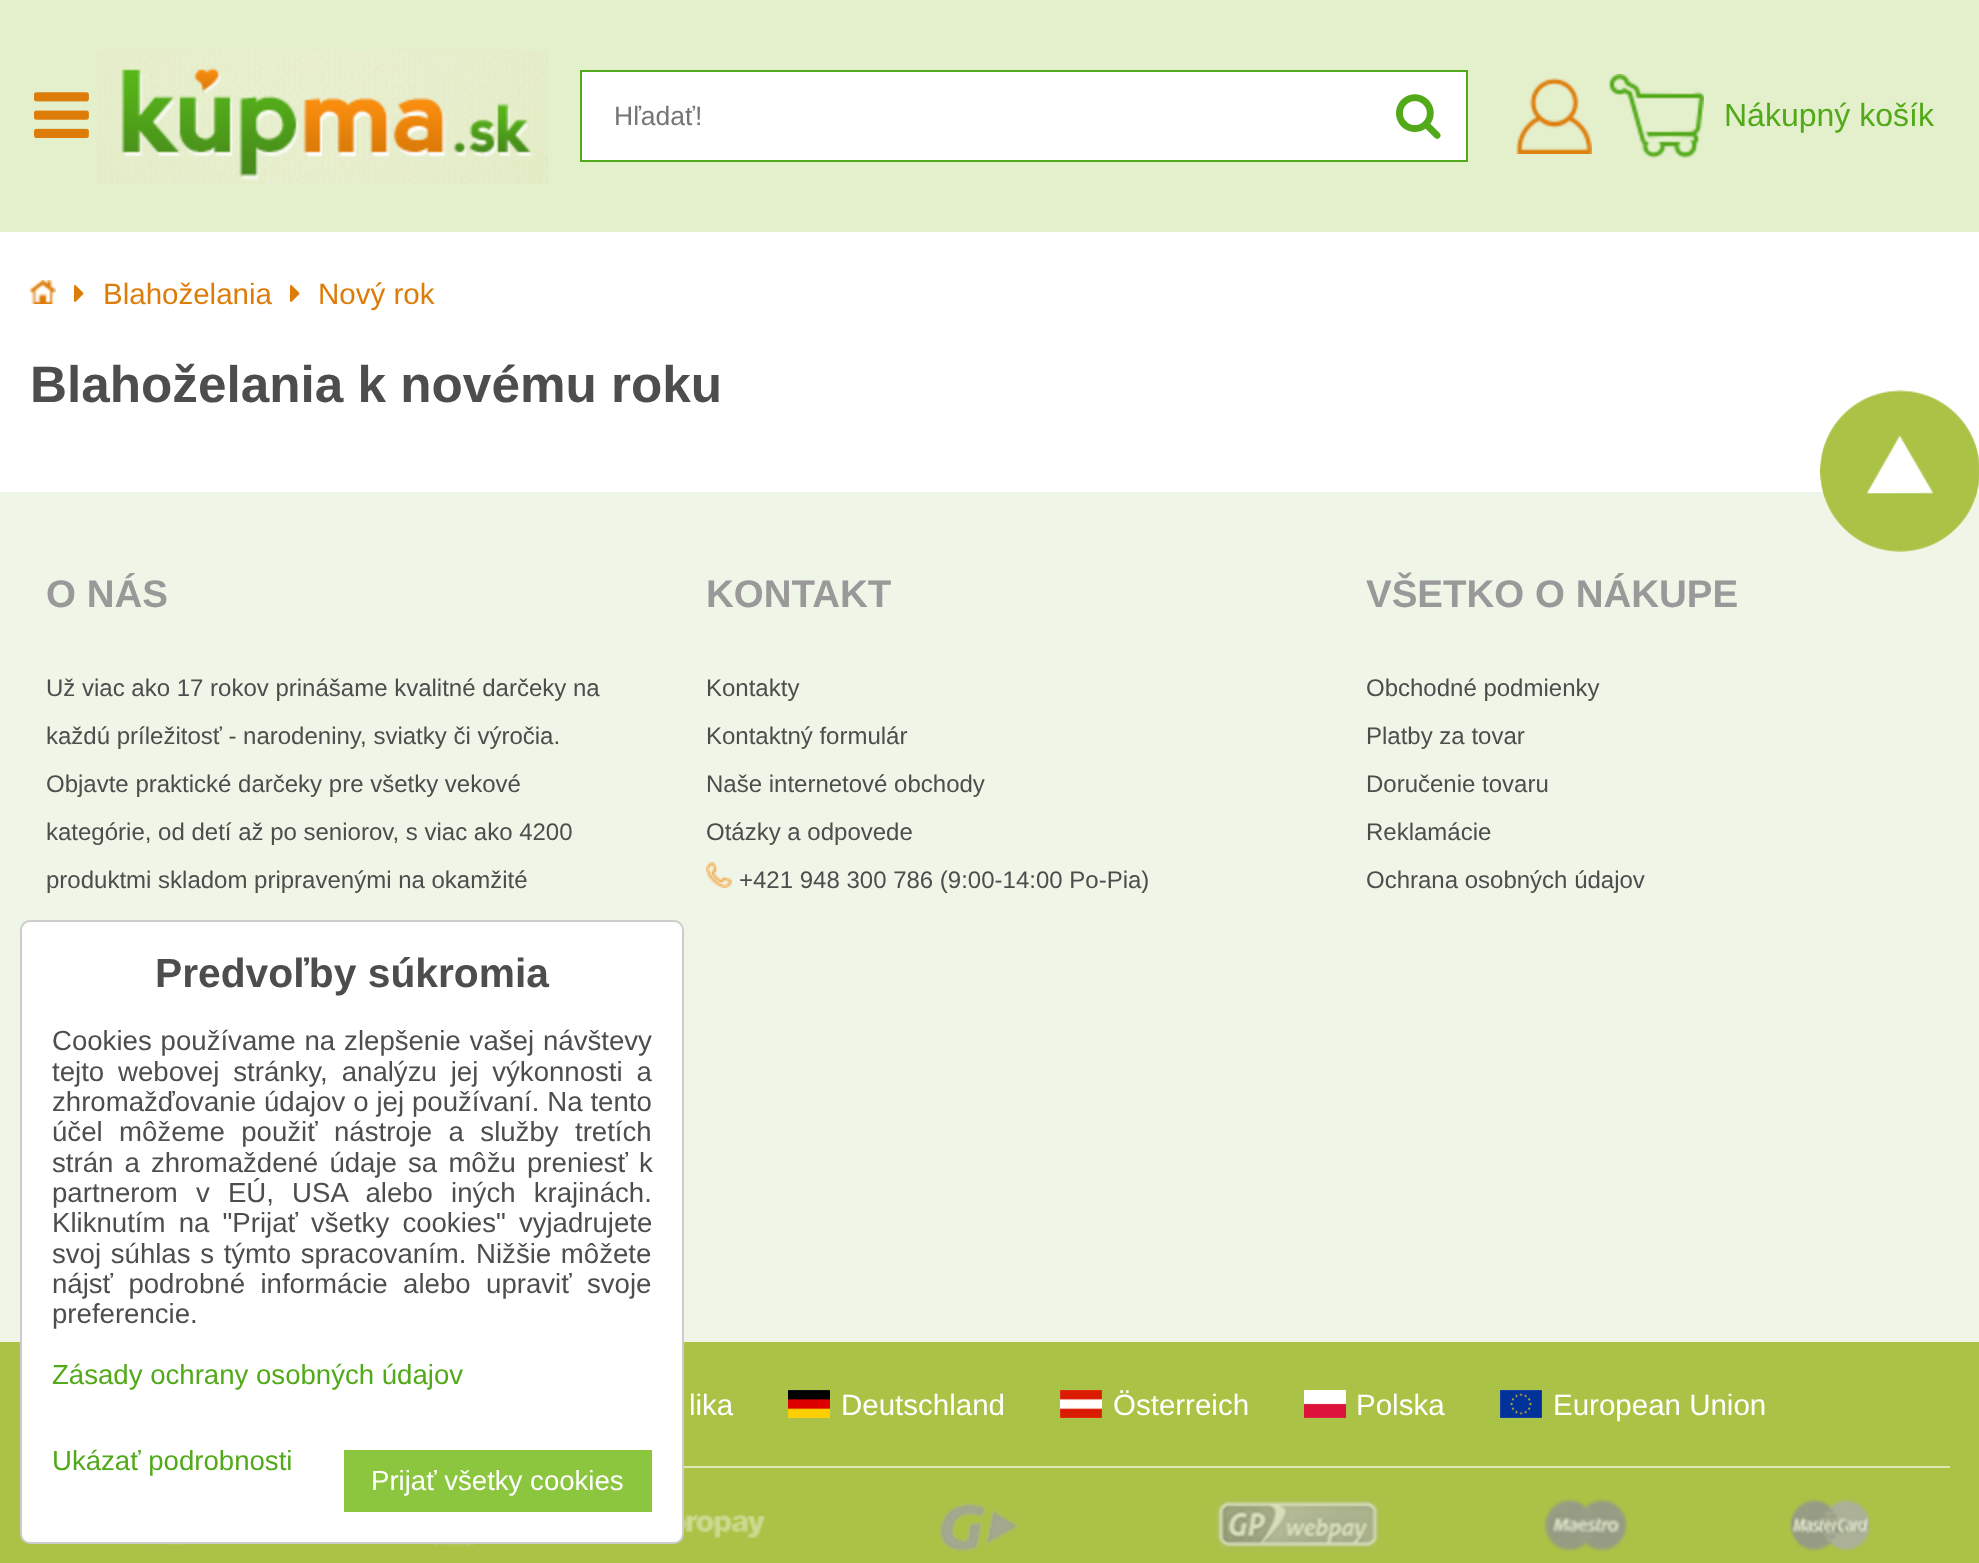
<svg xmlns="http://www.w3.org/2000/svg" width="1979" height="1563">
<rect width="100%" height="100%" fill="#fff"/>
<rect width="1979" height="232" fill="#e4efcc"/>
<image x="34" y="92" width="55" height="46" href="media/1.png"/>
<image x="96" y="50" width="452" height="134" href="media/2.png"/>
<rect x="581" y="71" width="886" height="90" fill="#fff" stroke="#52a919" stroke-width="2"/>
<text x="614" y="125" style="font-family:Liberation Sans;font-size:26.5px;fill:#757575">Hľadať!</text>
<image x="1396" y="94" width="45" height="45" href="media/3.png"/>
<image x="1516" y="78" width="76" height="76" href="media/4.png"/>
<image x="1608" y="74" width="96" height="84" href="media/5.png"/>
<text x="1724" y="126" style="font-family:Liberation Sans;font-size:32px;fill:#52a919">Nákupný košík</text>
<image x="30" y="280" width="26" height="24" href="media/6.png"/>
<image x="74" y="285" width="10" height="17" href="media/7.png"/>
<text x="103" y="304" style="font-family:Liberation Sans;font-size:29.5px;fill:#dd7c09">Blahoželania</text>
<image x="290" y="285" width="10" height="17" href="media/7.png"/>
<text x="318" y="304" style="font-family:Liberation Sans;font-size:29.5px;fill:#dd7c09">Nový rok</text>
<text x="30" y="402" style="font-family:Liberation Sans;font-size:51.25px;font-weight:bold;fill:#4d4d4d">Blahoželania k novému roku</text>
<rect y="492" width="1979" height="850" fill="#eff5e7"/>
<image x="1820" y="390" width="159" height="162" href="media/8.png"/>
<text x="46" y="607" style="font-family:Liberation Sans;font-size:38.5px;font-weight:bold;fill:#999">O NÁS</text>
<text x="46" y="696" style="font-family:Liberation Sans;font-size:24px;fill:#4d4d4d">Už viac ako 17 rokov prinášame kvalitné darčeky na</text>
<text x="46" y="744" style="font-family:Liberation Sans;font-size:24px;fill:#4d4d4d">každú príležitosť - narodeniny, sviatky či výročia.</text>
<text x="46" y="792" style="font-family:Liberation Sans;font-size:24px;fill:#4d4d4d">Objavte praktické darčeky pre všetky vekové</text>
<text x="46" y="840" style="font-family:Liberation Sans;font-size:24px;fill:#4d4d4d">kategórie, od detí až po seniorov, s viac ako 4200</text>
<text x="46" y="888" style="font-family:Liberation Sans;font-size:24px;fill:#4d4d4d">produktmi skladom pripravenými na okamžité</text>
<text x="706" y="607" style="font-family:Liberation Sans;font-size:38.5px;font-weight:bold;fill:#999">KONTAKT</text>
<text x="706" y="696" style="font-family:Liberation Sans;font-size:24px;fill:#4d4d4d">Kontakty</text>
<text x="706" y="744" style="font-family:Liberation Sans;font-size:24px;fill:#4d4d4d">Kontaktný formulár</text>
<text x="706" y="792" style="font-family:Liberation Sans;font-size:24px;fill:#4d4d4d">Naše internetové obchody</text>
<text x="706" y="840" style="font-family:Liberation Sans;font-size:24px;fill:#4d4d4d">Otázky a odpovede</text>
<image x="706" y="862" width="26" height="26" href="media/9.png"/>
<text x="739" y="888" style="font-family:Liberation Sans;font-size:24px;fill:#4d4d4d">+421 948 300 786 (9:00-14:00 Po-Pia)</text>
<text x="1366" y="607" style="font-family:Liberation Sans;font-size:38.5px;font-weight:bold;fill:#999">VŠETKO O NÁKUPE</text>
<text x="1366" y="696" style="font-family:Liberation Sans;font-size:24px;fill:#4d4d4d">Obchodné podmienky</text>
<text x="1366" y="744" style="font-family:Liberation Sans;font-size:24px;fill:#4d4d4d">Platby za tovar</text>
<text x="1366" y="792" style="font-family:Liberation Sans;font-size:24px;fill:#4d4d4d">Doručenie tovaru</text>
<text x="1366" y="840" style="font-family:Liberation Sans;font-size:24px;fill:#4d4d4d">Reklamácie</text>
<text x="1366" y="888" style="font-family:Liberation Sans;font-size:24px;fill:#4d4d4d">Ochrana osobných údajov</text>
<rect y="1342" width="1979" height="221" fill="#aac346"/>
<rect x="684" y="1466" width="1266" height="2" fill="#dde7b5"/>
<text x="689" y="1415" style="font-family:Liberation Sans;font-size:29.5px;fill:#fff">lika</text>
<image x="788" y="1390" width="42" height="28" href="media/10.png"/>
<text x="841" y="1415" style="font-family:Liberation Sans;font-size:29.5px;fill:#fff">Deutschland</text>
<image x="1060" y="1390" width="42" height="28" href="media/11.png"/>
<text x="1113" y="1415" style="font-family:Liberation Sans;font-size:29.5px;fill:#fff">Österreich</text>
<image x="1304" y="1390" width="42" height="28" href="media/12.png"/>
<text x="1356" y="1415" style="font-family:Liberation Sans;font-size:29.5px;fill:#fff">Polska</text>
<image x="1500" y="1390" width="42" height="28" href="media/13.png"/>
<text x="1553" y="1415" style="font-family:Liberation Sans;font-size:29.5px;fill:#fff">European Union</text>
<image x="684" y="1514" width="82" height="24" href="media/14.png"/>
<image x="938" y="1503" width="81" height="49" href="media/15.png"/>
<image x="1213" y="1498" width="169" height="54" href="media/16.png"/>
<image x="1544" y="1498" width="84" height="54" href="media/17.png"/>
<image x="1790" y="1498" width="80" height="54" href="media/18.png"/>
<image x="139" y="1544" width="74" height="1" href="media/19.png"/>
<image x="433" y="1544" width="41" height="3" href="media/20.png"/>
<rect x="21" y="921" width="662" height="622" rx="9" fill="#fff" stroke="#ccc" stroke-width="2"/>
<text x="155" y="987" style="font-family:Liberation Sans;font-size:40.75px;font-weight:bold;fill:#4d4d4d">Predvoľby súkromia</text>
<text x="52" y="1050" word-spacing="1.25" style="font-family:Liberation Sans;font-size:27.6px;fill:#4d4d4d">Cookies používame na zlepšenie vašej návštevy</text>
<text x="52" y="1081" word-spacing="6.25" style="font-family:Liberation Sans;font-size:27.6px;fill:#4d4d4d">tejto webovej stránky, analýzu jej výkonnosti a</text>
<text x="52" y="1111" word-spacing="0.25" style="font-family:Liberation Sans;font-size:27.6px;fill:#4d4d4d">zhromažďovanie údajov o jej používaní. Na tento</text>
<text x="52" y="1141" word-spacing="8.75" style="font-family:Liberation Sans;font-size:27.6px;fill:#4d4d4d">účel môžeme použiť nástroje a služby tretích</text>
<text x="52" y="1172" word-spacing="3.5" style="font-family:Liberation Sans;font-size:27.6px;fill:#4d4d4d">strán a zhromaždené údaje sa môžu preniesť k</text>
<text x="52" y="1202" word-spacing="10.5" style="font-family:Liberation Sans;font-size:27.6px;fill:#4d4d4d">partnerom v EÚ, USA alebo iných krajinách.</text>
<text x="52" y="1232" word-spacing="5.5" style="font-family:Liberation Sans;font-size:27.6px;fill:#4d4d4d">Kliknutím na "Prijať všetky cookies" vyjadrujete</text>
<text x="52" y="1263" word-spacing="2" style="font-family:Liberation Sans;font-size:27.6px;fill:#4d4d4d">svoj súhlas s týmto spracovaním. Nižšie môžete</text>
<text x="52" y="1293" word-spacing="7.75" style="font-family:Liberation Sans;font-size:27.6px;fill:#4d4d4d">nájsť podrobné informácie alebo upraviť svoje</text>
<text x="52" y="1323" style="font-family:Liberation Sans;font-size:27.6px;fill:#4d4d4d">preferencie.</text>
<text x="52" y="1384" style="font-family:Liberation Sans;font-size:27.6px;fill:#52a919">Zásady ochrany osobných údajov</text>
<text x="52" y="1470" style="font-family:Liberation Sans;font-size:27.6px;fill:#52a919">Ukázať podrobnosti</text>
<rect x="344" y="1450" width="308" height="62" fill="#8cc63f"/>
<text x="371" y="1490" style="font-family:Liberation Sans;font-size:27.6px;fill:#fff">Prijať všetky cookies</text>
</svg>
